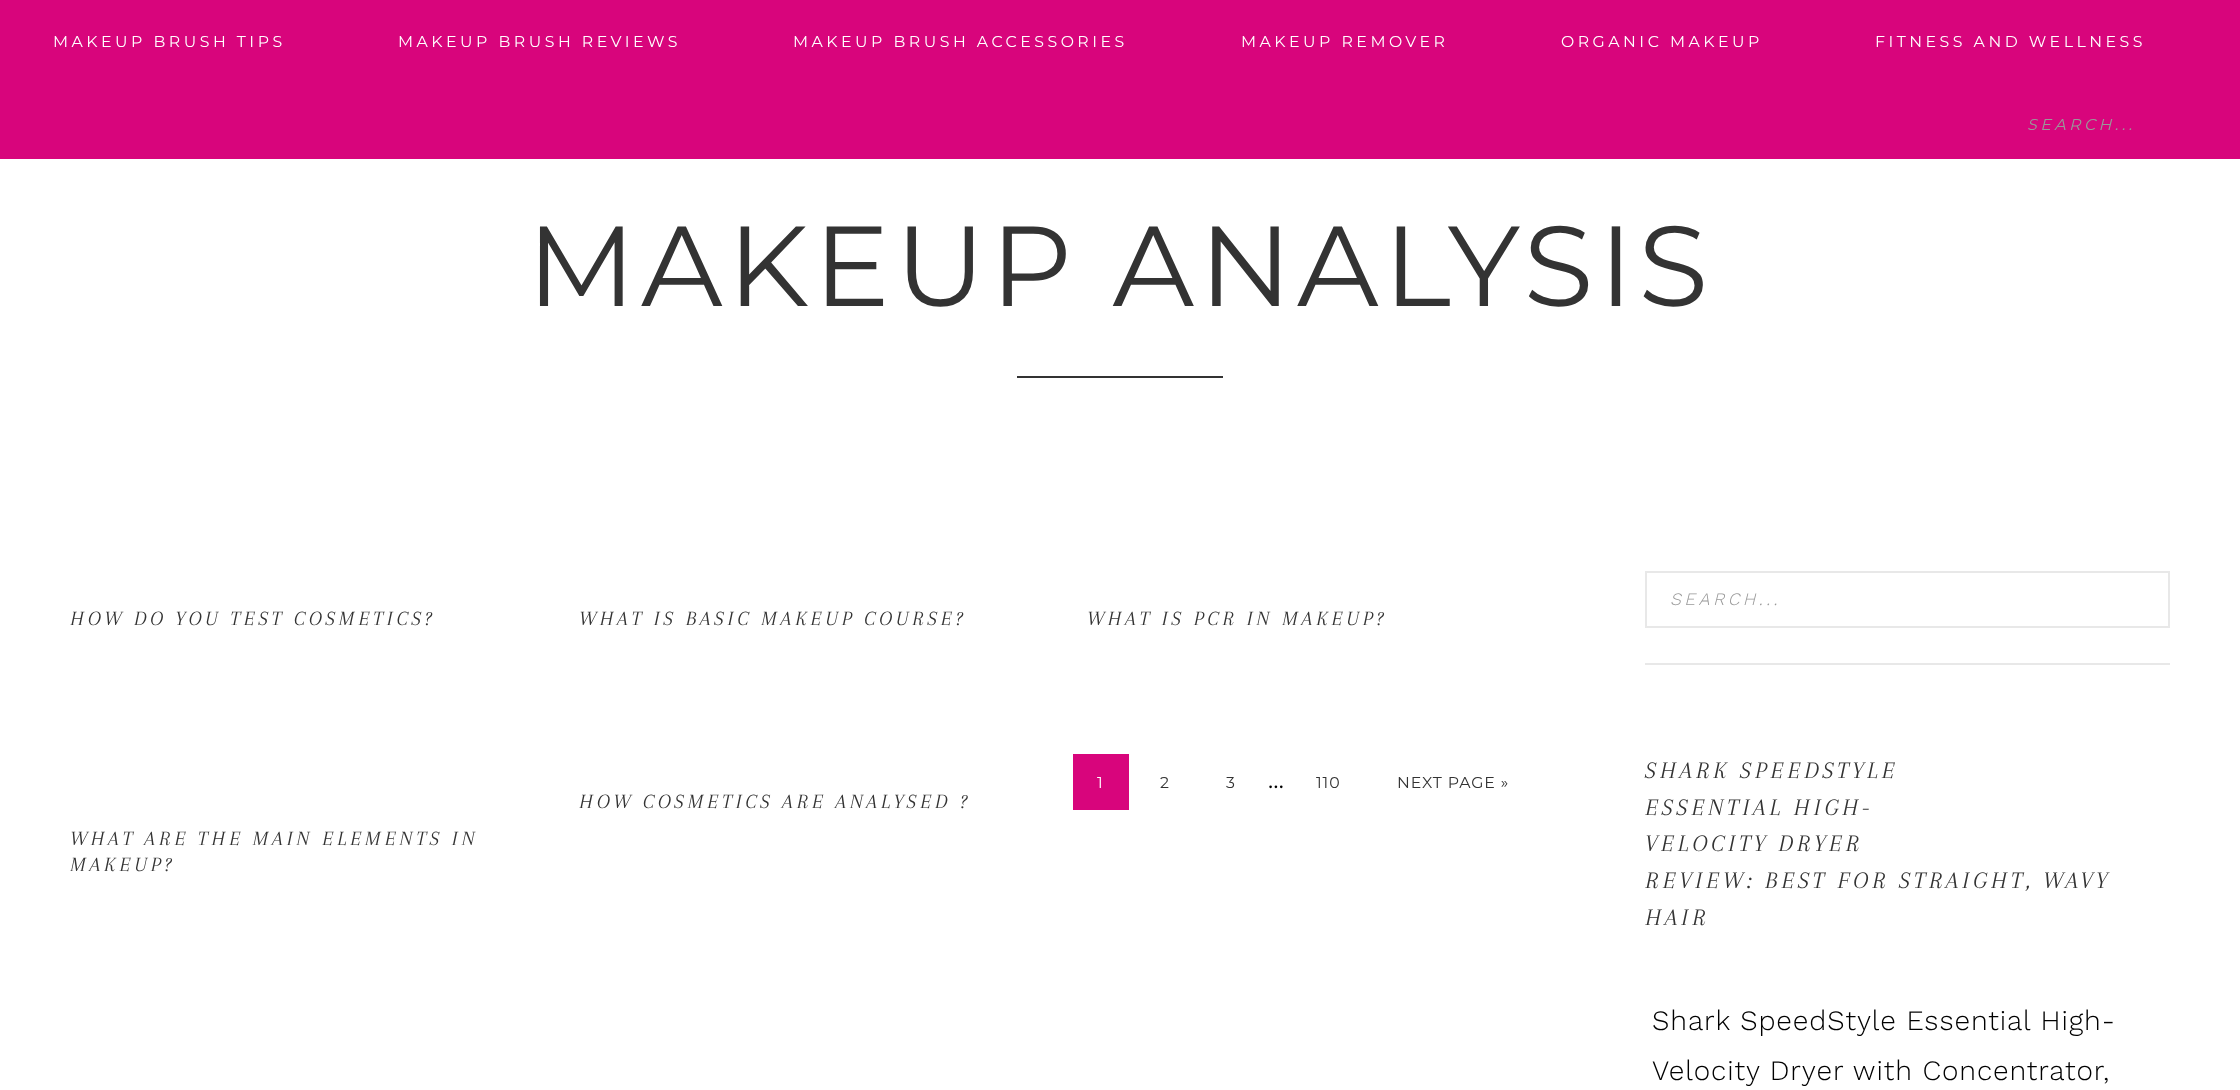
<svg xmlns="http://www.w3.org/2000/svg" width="2240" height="1090">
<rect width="100%" height="100%" fill="#fff"/>
<rect width="2240" height="159" fill="#d8057c"/>
<text x="53" y="47" style="font-family:Montserrat;font-size:15.75px;font-weight:100;letter-spacing:3.5px;fill:#fff">MAKEUP BRUSH TIPS</text>
<text x="398" y="47" style="font-family:Montserrat;font-size:15.75px;font-weight:100;letter-spacing:3.5px;fill:#fff">MAKEUP BRUSH REVIEWS</text>
<text x="793" y="47" style="font-family:Montserrat;font-size:15.75px;font-weight:100;letter-spacing:3.5px;fill:#fff">MAKEUP BRUSH ACCESSORIES</text>
<text x="1241" y="47" style="font-family:Montserrat;font-size:15.75px;font-weight:100;letter-spacing:3.5px;fill:#fff">MAKEUP REMOVER</text>
<text x="1561" y="47" style="font-family:Montserrat;font-size:15.75px;font-weight:100;letter-spacing:3.5px;fill:#fff">ORGANIC MAKEUP</text>
<text x="1875" y="47" style="font-family:Montserrat;font-size:15.75px;font-weight:100;letter-spacing:3.5px;fill:#fff">FITNESS AND WELLNESS</text>
<text x="2027" y="130" style="font-family:Montserrat;font-size:15.75px;font-weight:100;font-style:italic;letter-spacing:3.5px;fill:#999">SEARCH...</text>
<text x="527" y="306" style="font-family:Montserrat;font-size:113.75px;font-weight:100;letter-spacing:5.25px;fill:#333">MAKEUP ANALYSIS</text>
<rect x="1017" y="376" width="206" height="2" fill="#333"/>
<text x="70" y="625" style="font-family:Arapey;font-size:21px;font-style:italic;letter-spacing:3.5px;fill:#333">HOW DO YOU TEST COSMETICS?</text>
<text x="579" y="625" style="font-family:Arapey;font-size:21px;font-style:italic;letter-spacing:3.5px;fill:#333">WHAT IS BASIC MAKEUP COURSE?</text>
<text x="1087" y="625" style="font-family:Arapey;font-size:21px;font-style:italic;letter-spacing:3.5px;fill:#333">WHAT IS PCR IN MAKEUP?</text>
<rect x="1073" y="754" width="56" height="56" fill="#d8057c"/>
<text x="1097" y="788" style="font-family:Montserrat;font-size:15.75px;font-weight:100;letter-spacing:0.9px;fill:#fff">1</text>
<text x="1160" y="788" style="font-family:Montserrat;font-size:15.75px;font-weight:100;letter-spacing:0.9px;fill:#333">2</text>
<text x="1226" y="788" style="font-family:Montserrat;font-size:15.75px;font-weight:100;letter-spacing:0.9px;fill:#333">3</text>
<text x="1268" y="788" style="font-family:Montserrat;font-size:24.5px;font-weight:100;letter-spacing:0.9px;fill:#000">…</text>
<text x="1316" y="788" style="font-family:Montserrat;font-size:15.75px;font-weight:100;letter-spacing:0.9px;fill:#333">110</text>
<text x="1397" y="788" style="font-family:Montserrat;font-size:15.75px;font-weight:100;letter-spacing:0.9px;fill:#333">NEXT PAGE »</text>
<text x="579" y="808" style="font-family:Arapey;font-size:21px;font-style:italic;letter-spacing:3.5px;fill:#333">HOW COSMETICS ARE ANALYSED ?</text>
<text x="70" y="845" style="font-family:Arapey;font-size:21px;font-style:italic;letter-spacing:3.5px;fill:#333">WHAT ARE THE MAIN ELEMENTS IN</text>
<text x="70" y="871" style="font-family:Arapey;font-size:21px;font-style:italic;letter-spacing:3.5px;fill:#333">MAKEUP?</text>
<rect x="1645" y="663" width="525" height="2" fill="#e8e8e8"/>
<rect x="1646" y="572" width="523" height="55" fill="none" stroke="#e8e8e8" stroke-width="2"/>
<text x="1670" y="605" style="font-family:Work Sans;font-size:17.5px;font-weight:300;font-style:italic;letter-spacing:3.5px;fill:#999">SEARCH...</text>
<text x="1645" y="778" style="font-family:Arapey;font-size:24.5px;font-style:italic;letter-spacing:3.5px;fill:#333">SHARK SPEEDSTYLE</text>
<text x="1645" y="815" style="font-family:Arapey;font-size:24.5px;font-style:italic;letter-spacing:3.5px;fill:#333">ESSENTIAL HIGH-</text>
<text x="1645" y="851" style="font-family:Arapey;font-size:24.5px;font-style:italic;letter-spacing:3.5px;fill:#333">VELOCITY DRYER</text>
<text x="1645" y="888" style="font-family:Arapey;font-size:24.5px;font-style:italic;letter-spacing:3.5px;fill:#333">REVIEW: BEST FOR STRAIGHT, WAVY</text>
<text x="1645" y="925" style="font-family:Arapey;font-size:24.5px;font-style:italic;letter-spacing:3.5px;fill:#333">HAIR</text>
<text x="1652" y="1030" style="font-family:Work Sans;font-size:28px;font-weight:300;letter-spacing:0.9px;fill:#000">Shark SpeedStyle Essential High-</text>
<text x="1652" y="1080" style="font-family:Work Sans;font-size:28px;font-weight:300;letter-spacing:0.9px;fill:#000">Velocity Dryer with Concentrator,</text>
</svg>
